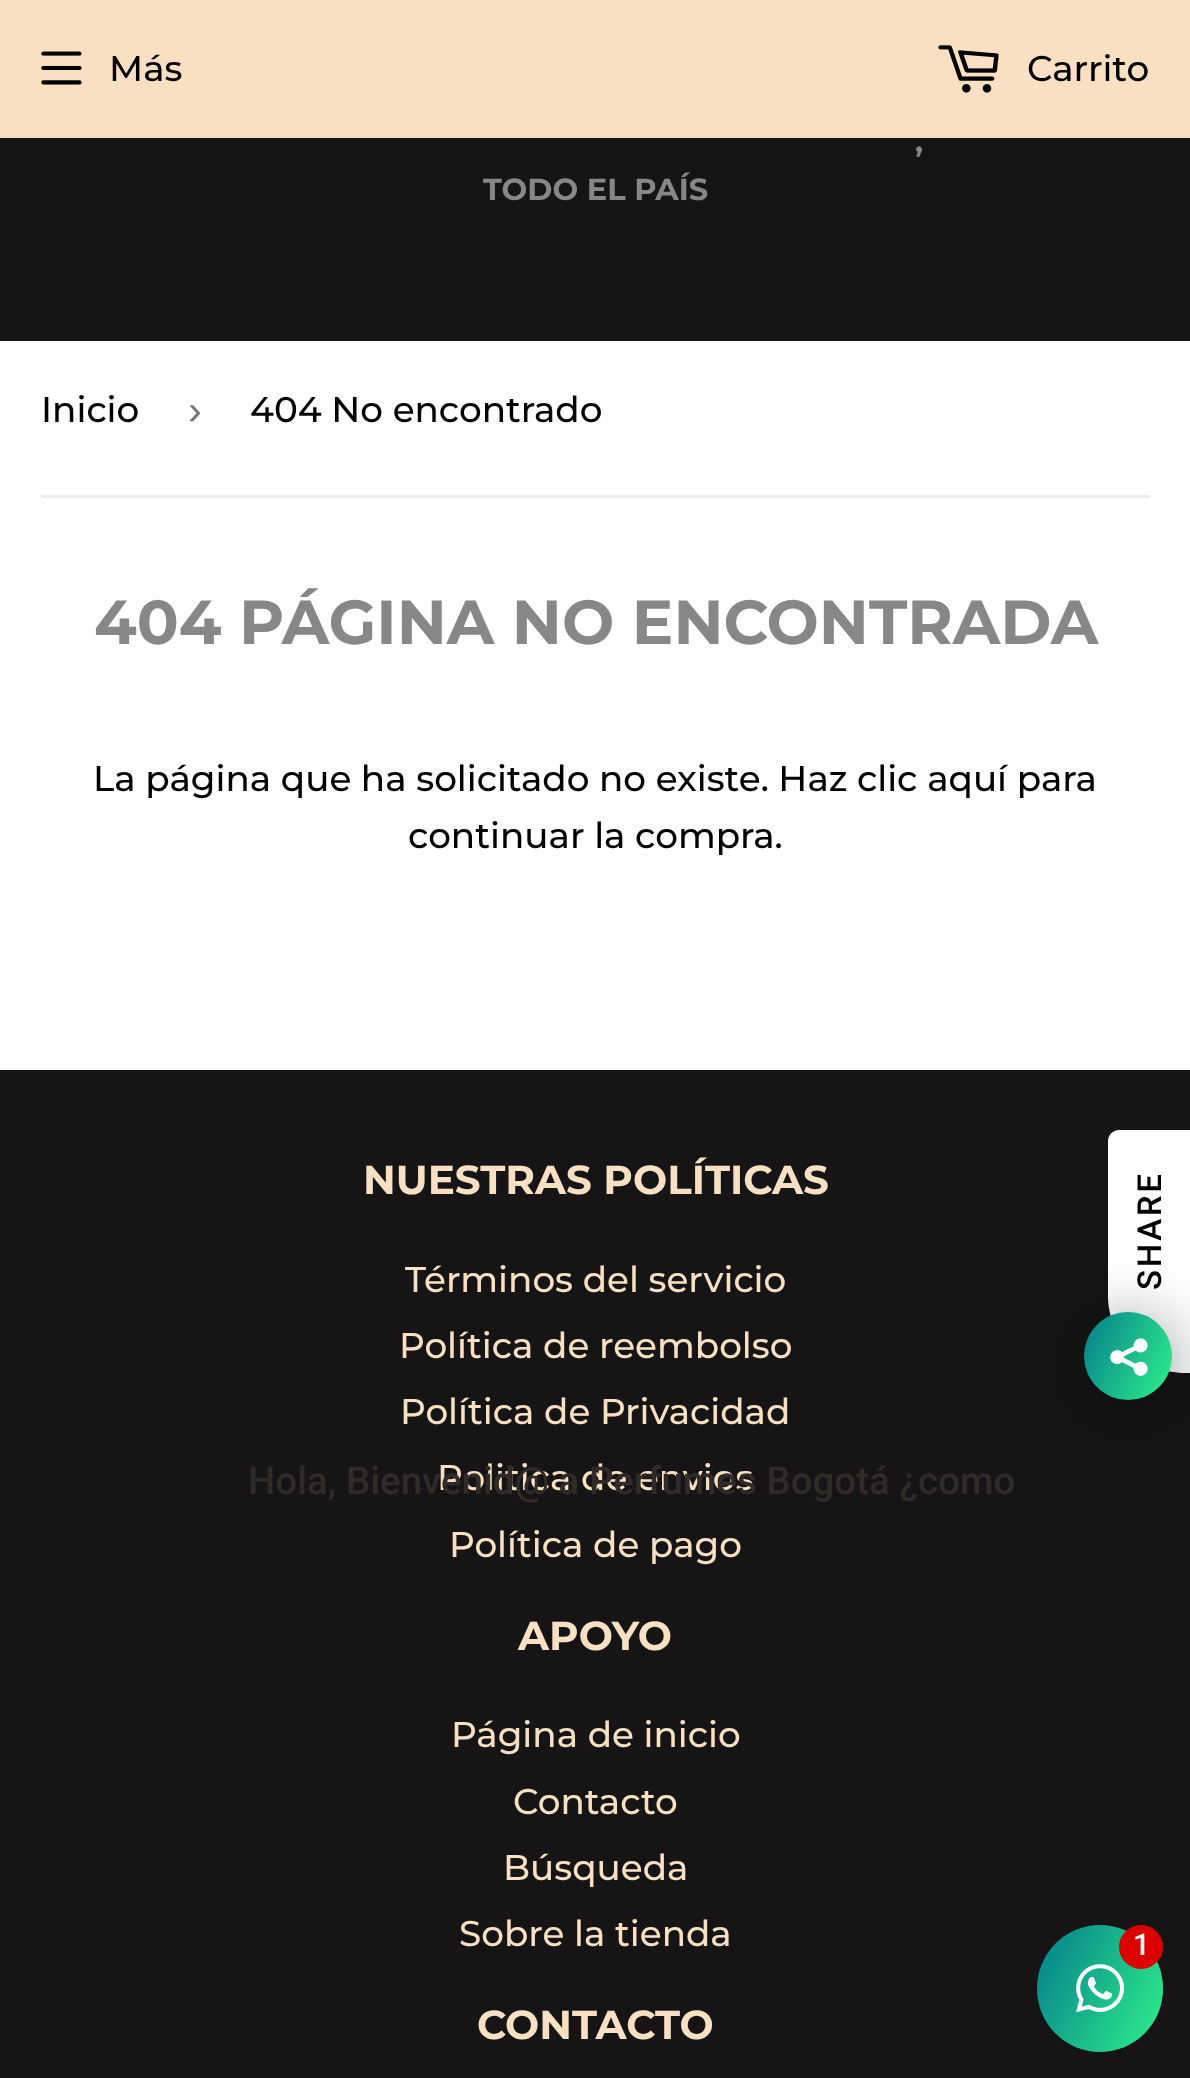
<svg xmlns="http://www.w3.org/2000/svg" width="1190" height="2078">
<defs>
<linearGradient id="g1" gradientUnits="userSpaceOnUse" x1="1075" y1="1331" x2="1180" y2="1380"><stop offset="0" stop-color="#047c8d"/><stop offset="1" stop-color="#2ff289"/></linearGradient>
<linearGradient id="g2" gradientUnits="userSpaceOnUse" x1="1024" y1="1953" x2="1176" y2="2024"><stop offset="0" stop-color="#047c8d"/><stop offset="1" stop-color="#2ff289"/></linearGradient>
</defs>
<rect width="100%" height="100%" fill="#fff"/>
<rect width="1190" height="138" fill="#fae0c2"/>
<image x="41" y="51" width="41" height="34" href="media/1.png"/>
<text x="109" y="81" style="font-family:Montserrat;font-size:35.75px;font-weight:500;fill:#000">Más</text>
<image x="938" y="45" width="61" height="48" href="media/2.png"/>
<text x="1027" y="81" style="font-family:Montserrat;font-size:35.75px;font-weight:500;fill:#000">Carrito</text>
<rect y="138" width="1190" height="203" fill="#161414"/>
<text x="915" y="152" style="font-family:Montserrat;font-size:30.5px;font-weight:bold;fill:#878787">,</text>
<text x="483" y="200" style="font-family:Montserrat;font-size:30.5px;font-weight:bold;fill:#878787">TODO EL PAÍS</text>
<rect x="41" y="495" width="1109" height="3" fill="#ececec"/>
<text x="41" y="422" style="font-family:Montserrat;font-size:35.75px;font-weight:500;fill:#000">Inicio</text>
<text x="188" y="424" style="font-family:Liberation Sans;font-size:41px;fill:#767676">›</text>
<text x="250" y="422" style="font-family:Montserrat;font-size:35.75px;font-weight:500;fill:#000">404 No encontrado</text>
<text x="94" y="644" style="font-family:Montserrat;font-size:62px;font-weight:bold;fill:#878787">404 PÁGINA NO ENCONTRADA</text>
<text x="93" y="791" style="font-family:Montserrat;font-size:35.75px;font-weight:500;fill:#000">La página que ha solicitado no existe. Haz clic aquí para</text>
<text x="408" y="848" style="font-family:Montserrat;font-size:35.75px;font-weight:500;fill:#000">continuar la compra.</text>
<rect y="1070" width="1190" height="1008" fill="#161414"/>
<text x="363" y="1194" style="font-family:Montserrat;font-size:40.5px;font-weight:bold;fill:#fae0c2">NUESTRAS POLÍTICAS</text>
<text x="405" y="1292" style="font-family:Montserrat;font-size:35.75px;font-weight:500;fill:#fae0c2">Términos del servicio</text>
<text x="399" y="1358" style="font-family:Montserrat;font-size:35.75px;font-weight:500;fill:#fae0c2">Política de reembolso</text>
<text x="400" y="1424" style="font-family:Montserrat;font-size:35.75px;font-weight:500;fill:#fae0c2">Política de Privacidad</text>
<text x="437" y="1490" style="font-family:Montserrat;font-size:35.75px;font-weight:500;fill:#fae0c2">Politica de envios</text>
<text x="449" y="1557" style="font-family:Montserrat;font-size:35.75px;font-weight:500;fill:#fae0c2">Política de pago</text>
<text x="518" y="1650" style="font-family:Montserrat;font-size:40.5px;font-weight:bold;fill:#fae0c2">APOYO</text>
<text x="451" y="1747" style="font-family:Montserrat;font-size:35.75px;font-weight:500;fill:#fae0c2">Página de inicio</text>
<text x="513" y="1814" style="font-family:Montserrat;font-size:35.75px;font-weight:500;fill:#fae0c2">Contacto</text>
<text x="503" y="1880" style="font-family:Montserrat;font-size:35.75px;font-weight:500;fill:#fae0c2">Búsqueda</text>
<text x="459" y="1946" style="font-family:Montserrat;font-size:35.75px;font-weight:500;fill:#fae0c2">Sobre la tienda</text>
<text x="477" y="2039" style="font-family:Montserrat;font-size:40.5px;font-weight:bold;fill:#fae0c2">CONTACTO</text>
<path d="M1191 1130v243h-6c-42 0-77-35-77-77v-155c0-6 5-11 11-11z" fill="#fff"/>
<text x="1161" y="1290" transform="rotate(-90 1161 1290)" style="font-family:Roboto;font-size:33px;font-weight:500;letter-spacing:2.75px;fill:#000">SHARE</text>
<rect x="1084" y="1323" width="88" height="88" rx="44" fill="#02061080" filter="blur(33px)"/>
<circle cx="1128" cy="1356" r="44" fill="url(#g1)"/>
<image x="1110" y="1338" width="38" height="38" href="media/3.png"/>
<text x="248" y="1494" style="font-family:Roboto;font-size:38.5px;font-weight:500;fill:#302b28">Hola, Bienvenid@ a Perfumes Bogotá ¿como</text>
<rect x="1037" y="1925" width="126" height="127" rx="63" fill="url(#g2)"/>
<image x="1076" y="1964" width="49" height="49" href="media/4.png"/>
<circle cx="1141" cy="1947" r="22" fill="#d00"/>
<text x="1133" y="1955" style="font-family:Roboto;font-size:30px;font-weight:500;fill:#fff">1</text>
</svg>
